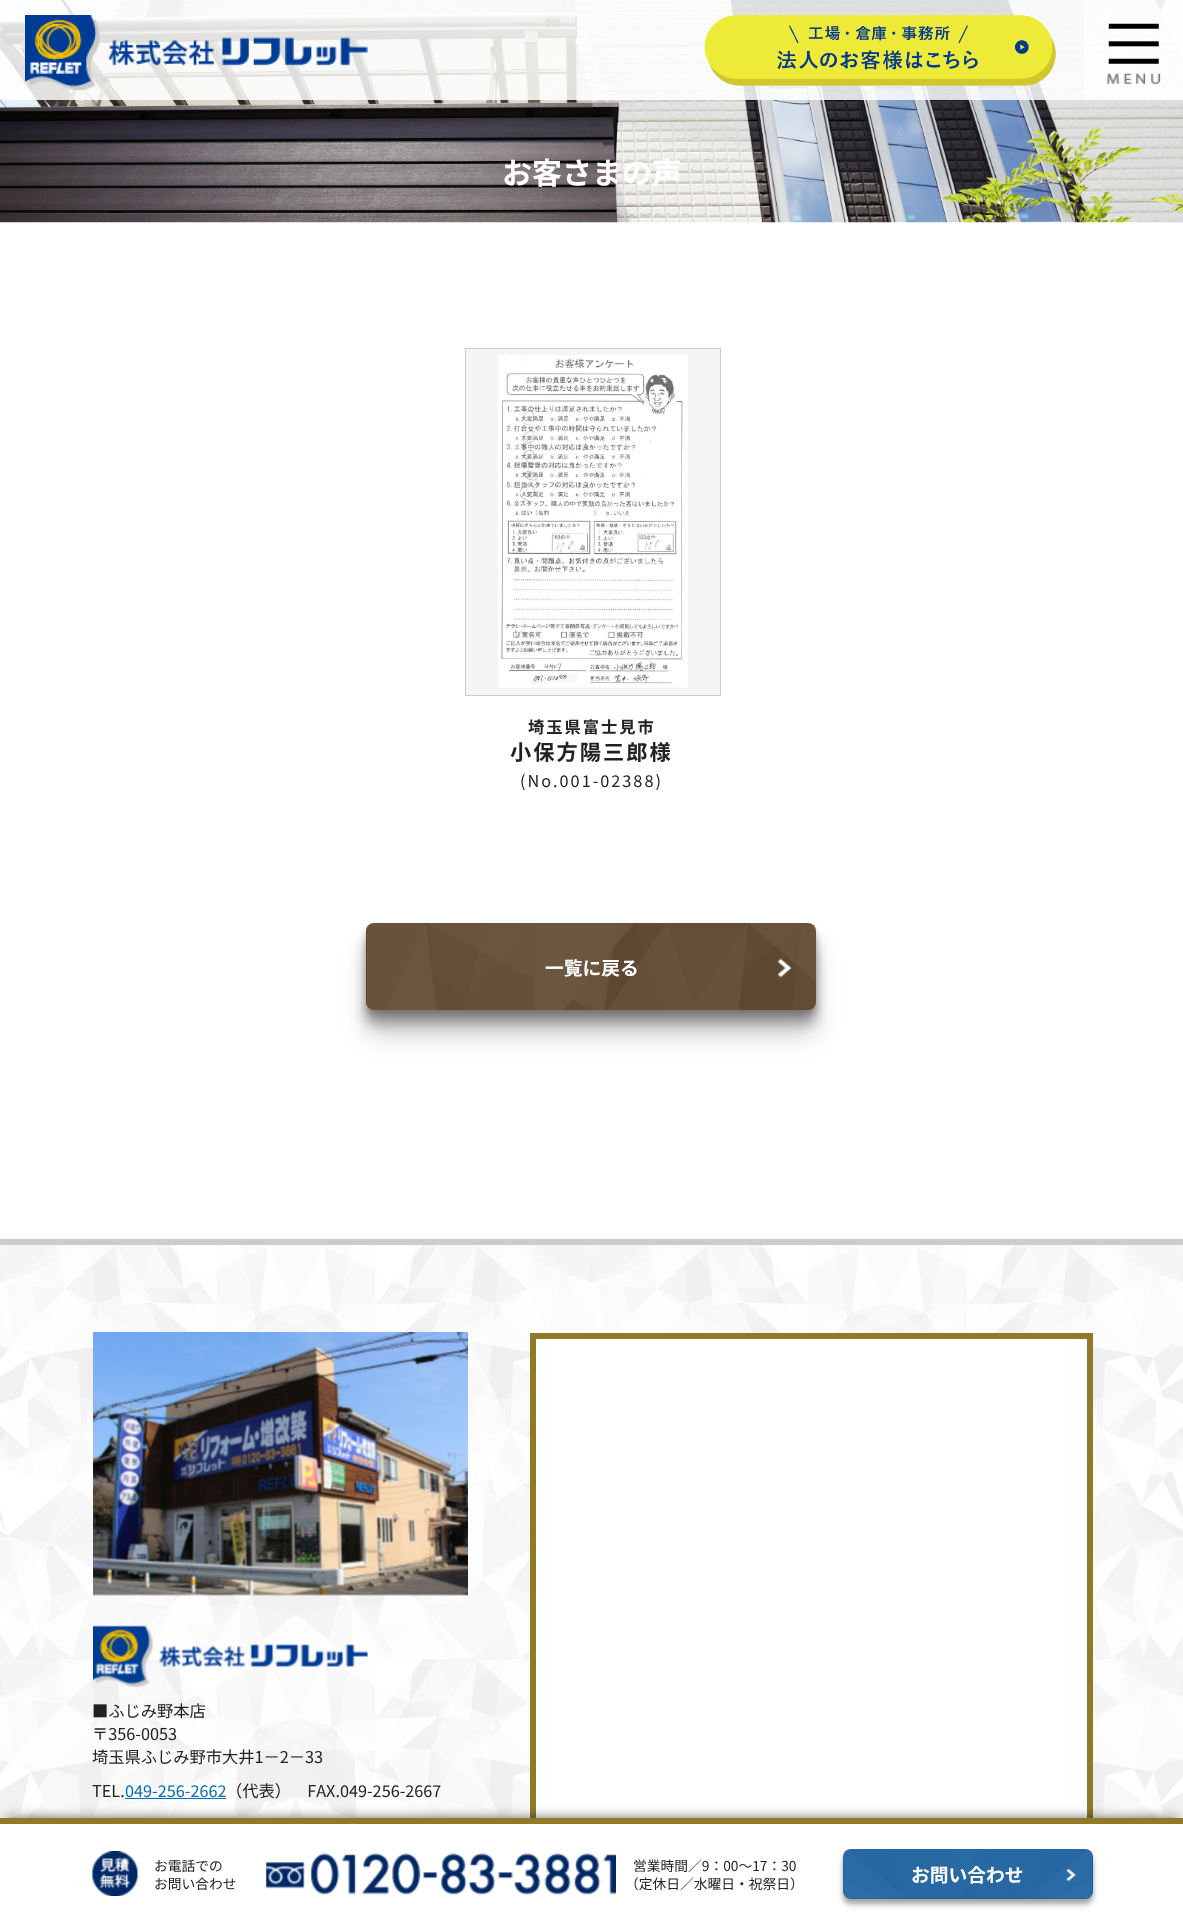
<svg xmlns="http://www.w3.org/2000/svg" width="1183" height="1925">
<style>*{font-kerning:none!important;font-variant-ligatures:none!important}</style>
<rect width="100%" height="100%" fill="#fff"/>
<image x="0" y="0" width="1183" height="223" href="media/4.png"/>
<rect width="1183" height="100" fill="#ffffffd9"/>
<image x="25" y="15" width="343" height="75" href="media/1.png"/>
<image x="704" y="15" width="352" height="71" href="media/2.png"/>
<rect x="1084" width="99" height="100" fill="#ffffff80"/>
<image x="1106" y="23" width="55" height="61" href="media/3.png"/>
<text x="502" y="184" style="font-family:Noto Sans JP;font-size:30px;font-weight:bold;fill:#fff">お客さまの声</text>
<rect x="465.5" y="348.5" width="255" height="347" fill="none" stroke="#ccc"/>
<rect x="466" y="349" width="254" height="346" fill="#f5f5f5"/>
<image x="498" y="355" width="190" height="333" href="media/5.png"/>
<text x="528" y="733" style="font-family:Noto Sans JP;font-size:16.25px;font-weight:bold;letter-spacing:2px;fill:#222">埼玉県富士見市</text>
<text x="510" y="760" style="font-family:Noto Sans JP;font-size:21.25px;font-weight:bold;letter-spacing:2px;fill:#222">小保方陽三郎様</text>
<text x="520" y="787" style="font-family:Noto Sans JP;font-size:16.25px;letter-spacing:2px;fill:#222">(No.001-02388)</text>
<rect x="366" y="948" width="450" height="87" rx="8" fill="#00000033" filter="blur(12.5px)"/>
<rect x="366" y="935" width="450" height="88" rx="8" fill="#0000001a" filter="blur(6px)"/>
<rect x="366" y="935" width="450" height="88" rx="8" fill="#0000001a" filter="blur(6px)"/>
<rect x="366" y="935" width="450" height="88" rx="8" fill="#0000001a" filter="blur(6px)"/>
<rect x="366" y="929" width="450" height="87" rx="8" fill="#0000001a" filter="blur(3px)"/>
<rect x="366" y="926" width="450" height="88" rx="8" fill="#0000001a" filter="blur(2px)"/>
<rect x="366" y="923" width="450" height="87" rx="8" fill="#492c0f"/>
<image x="366" y="922" width="450" height="88" href="media/6.png"/>
<text x="545" y="975" style="font-family:Noto Sans JP;font-size:18.75px;font-weight:bold;fill:#fff">一覧に戻る</text>
<image x="777" y="958" width="15" height="20" href="media/7.png"/>
<rect y="1239" width="1183" height="6" fill="#ccc"/>
<image x="0" y="1245" width="1183" height="573" href="media/8.png"/>
<image x="93" y="1332" width="375" height="264" href="media/9.png"/>
<image x="93" y="1625" width="275" height="62" href="media/10.png"/>
<text x="92" y="1717" style="font-family:Noto Sans JP;font-size:16.25px;fill:#222">■ふじみ野本店</text>
<text x="92" y="1740" style="font-family:Noto Sans JP;font-size:16.25px;fill:#222">〒356-0053</text>
<text x="92" y="1763" style="font-family:Noto Sans JP;font-size:16.25px;fill:#222">埼玉県ふじみ野市大井1－2－33</text>
<text x="92" y="1797" style="font-family:Noto Sans JP;font-size:16.25px;fill:#222">TEL.</text>
<text x="125" y="1797" style="font-family:Noto Sans JP;font-size:16.25px;fill:#036eb8">049-256-2662</text>
<rect x="125" y="1798" width="101" height="1" fill="#036eb8"/>
<text x="226" y="1797" style="font-family:Noto Sans JP;font-size:16.25px;fill:#222">（代表）</text>
<text x="291" y="1797" style="font-family:Noto Sans JP;font-size:16.25px;fill:#222">　FAX.049-256-2667</text>
<rect x="536" y="1339" width="551" height="479" fill="#fff"/>
<rect x="533" y="1336" width="557" height="494" fill="none" stroke="#927928" stroke-width="6"/>
<rect x="6" y="1818" width="1172" height="95" fill="#00000099" filter="blur(6px)"/>
<rect y="1824" width="1183" height="101" fill="#fff"/>
<rect y="1818" width="1183" height="6" fill="#927928"/>
<image x="92" y="1851" width="47" height="45" href="media/11.png"/>
<text x="154" y="1871" style="font-family:Noto Sans JP;font-size:13.75px;fill:#222">お電話での</text>
<text x="154" y="1889" style="font-family:Noto Sans JP;font-size:13.75px;fill:#222">お問い合わせ</text>
<image x="266" y="1853" width="350" height="42" href="media/12.png"/>
<text x="633" y="1871" style="font-family:Noto Sans JP;font-size:13.75px;fill:#222">営業時間／9：00〜17：30</text>
<text x="625" y="1889" style="font-family:Noto Sans JP;font-size:13.75px;fill:#222">（定休日／水曜日・祝祭日）</text>
<rect x="843" y="1855" width="250" height="50" rx="8" fill="#0000001a" filter="blur(3px)"/>
<rect x="843" y="1853" width="250" height="50" rx="8" fill="#0000001a" filter="blur(2px)"/>
<rect x="843" y="1855" width="250" height="50" rx="8" fill="#0000001a" filter="blur(3px)"/>
<rect x="843" y="1853" width="250" height="50" rx="8" fill="#0000001a" filter="blur(2px)"/>
<rect x="843" y="1849" width="250" height="50" rx="8" fill="#005099"/>
<image x="843" y="1849" width="250" height="50" href="media/13.png"/>
<text x="911" y="1882" style="font-family:Noto Sans JP;font-size:18.75px;font-weight:bold;fill:#fff">お問い合わせ</text>
<image x="1066" y="1868" width="10" height="14" href="media/14.png"/>
</svg>
